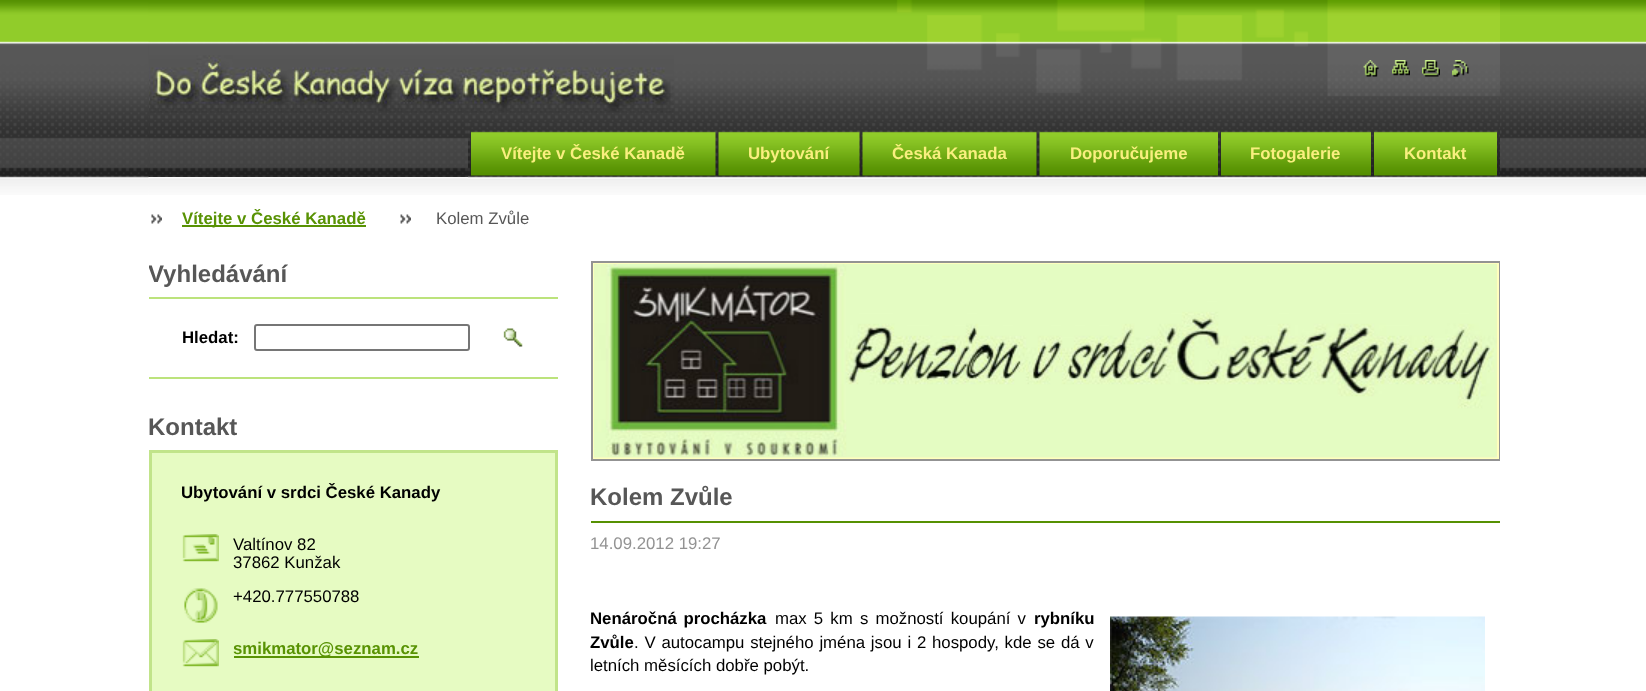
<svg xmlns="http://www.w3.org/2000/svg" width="1646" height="691">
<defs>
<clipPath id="clip1"><rect x="149" y="261" width="409" height="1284"/></clipPath>
</defs>
<rect width="100%" height="100%" fill="#fff"/>
<image x="0" y="0" width="1646" height="195" href="media/1.png"/>
<image x="148" y="0" width="1352" height="177" href="media/2.png"/>
<image x="149" y="55" width="525" height="58" href="media/3.png"/>
<image x="1363" y="60" width="16" height="17" href="media/4.png"/>
<image x="1392" y="60" width="18" height="16" href="media/5.png"/>
<image x="1422" y="60" width="18" height="17" href="media/6.png"/>
<image x="1452" y="60" width="17" height="17" href="media/7.png"/>
<image x="148" y="177" width="1352" height="18" href="media/15.png"/>
<image x="468" y="123" width="1032" height="56" href="media/8.png"/>
<image x="471" y="131" width="245" height="45" href="media/9.png"/>
<text x="501" y="159" style="font-family:Liberation Sans;font-size:16.8px;font-weight:bold;fill:#f9ef7f">Vítejte v České Kanadě</text>
<image x="718" y="131" width="142" height="45" href="media/10.png"/>
<text x="748" y="159" style="font-family:Liberation Sans;font-size:16.8px;font-weight:bold;fill:#f9ef7f">Ubytování</text>
<image x="862" y="131" width="175" height="45" href="media/11.png"/>
<text x="892" y="159" style="font-family:Liberation Sans;font-size:16.8px;font-weight:bold;fill:#f9ef7f">Česká Kanada</text>
<image x="1039" y="131" width="179" height="45" href="media/12.png"/>
<text x="1070" y="159" style="font-family:Liberation Sans;font-size:16.8px;font-weight:bold;fill:#f9ef7f">Doporučujeme</text>
<image x="1221" y="131" width="150" height="45" href="media/13.png"/>
<text x="1250" y="159" style="font-family:Liberation Sans;font-size:16.8px;font-weight:bold;fill:#f9ef7f">Fotogalerie</text>
<image x="1374" y="131" width="123" height="45" href="media/14.png"/>
<text x="1404" y="159" style="font-family:Liberation Sans;font-size:16.8px;font-weight:bold;fill:#f9ef7f">Kontakt</text>
<image x="151" y="214" width="11" height="10" href="media/16.png"/>
<rect x="182" y="225" width="184" height="2" fill="#589203"/>
<text x="182" y="224" style="font-family:Liberation Sans;font-size:16.8px;font-weight:bold;fill:#589203">Vítejte v České Kanadě</text>
<image x="400" y="214" width="11" height="10" href="media/17.png"/>
<text x="436" y="224" style="font-family:Liberation Sans;font-size:16.8px;fill:#575757">Kolem Zvůle</text>
<g clip-path="url(#clip1)">
<text x="148" y="282" style="font-family:Liberation Sans;font-size:24px;font-weight:bold;fill:#575757">Vyhledávání</text>
</g>
<rect x="149" y="297" width="409" height="2" fill="#bce37c"/>
<rect x="149" y="377" width="409" height="2" fill="#bce37c"/>
<text x="182" y="343" style="font-family:Liberation Sans;font-size:16.8px;font-weight:bold;fill:#000">Hledat:</text>
<rect x="255" y="325" width="214" height="25" rx="2" fill="none" stroke="#767676" stroke-width="2"/>
<image x="503" y="328" width="20" height="19" href="media/18.png"/>
<text x="148" y="435" style="font-family:Liberation Sans;font-size:24px;font-weight:bold;fill:#575757">Kontakt</text>
<rect x="150.5" y="451.5" width="406" height="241" fill="#e6fbc2" stroke="#c1e48a" stroke-width="3"/>
<text x="181" y="498" style="font-family:Liberation Sans;font-size:16.8px;font-weight:bold;fill:#000">Ubytování v srdci České Kanady</text>
<image x="182" y="534" width="37" height="28" href="media/19.png"/>
<text x="233" y="550" style="font-family:Liberation Sans;font-size:16.8px;fill:#000">Valtínov 82</text>
<text x="233" y="568" style="font-family:Liberation Sans;font-size:16.8px;fill:#000">37862 Kunžak</text>
<image x="184" y="588" width="34" height="35" href="media/20.png"/>
<text x="233" y="602" style="font-family:Liberation Sans;font-size:16.8px;fill:#000">+420.777550788</text>
<image x="182" y="639" width="37" height="28" href="media/21.png"/>
<rect x="234" y="656" width="185" height="2" fill="#589203"/>
<text x="233" y="654" style="font-family:Liberation Sans;font-size:16.8px;font-weight:bold;fill:#589203">smikmator@seznam.cz</text>
<rect x="592" y="262" width="907" height="198" fill="none" stroke="#939393" stroke-width="2"/>
<rect x="594" y="264" width="904" height="194" fill="none" stroke="#ffffbe" stroke-width="2"/>
<image x="594" y="264" width="903" height="194" href="media/22.png"/>
<text x="590" y="505" style="font-family:Liberation Sans;font-size:24px;font-weight:bold;fill:#575757">Kolem Zvůle</text>
<rect x="591" y="521" width="909" height="2" fill="#569102"/>
<text x="590" y="549" style="font-family:Liberation Sans;font-size:16.8px;fill:#939393">14.09.2012 19:27</text>
<text x="590" y="624" word-spacing="2" style="font-family:Liberation Sans;font-size:16.8px;font-weight:bold;fill:#000">Nenáročná procházka</text>
<image x="1110" y="616" width="375" height="75" href="media/23.png"/>
<text x="775" y="624" word-spacing="2.5" style="font-family:Liberation Sans;font-size:16.8px;fill:#000">max 5 km s možností koupání v</text>
<text x="1034" y="624" style="font-family:Liberation Sans;font-size:16.8px;font-weight:bold;fill:#000">rybníku</text>
<text x="590" y="648" style="font-family:Liberation Sans;font-size:16.8px;font-weight:bold;fill:#000">Zvůle</text>
<text x="634" y="648" word-spacing="1.1" style="font-family:Liberation Sans;font-size:16.8px;fill:#000">. V autocampu stejného jména jsou i 2 hospody, kde se dá v</text>
<text x="590" y="671" style="font-family:Liberation Sans;font-size:16.8px;fill:#000">letních měsících dobře pobýt.</text>
</svg>
